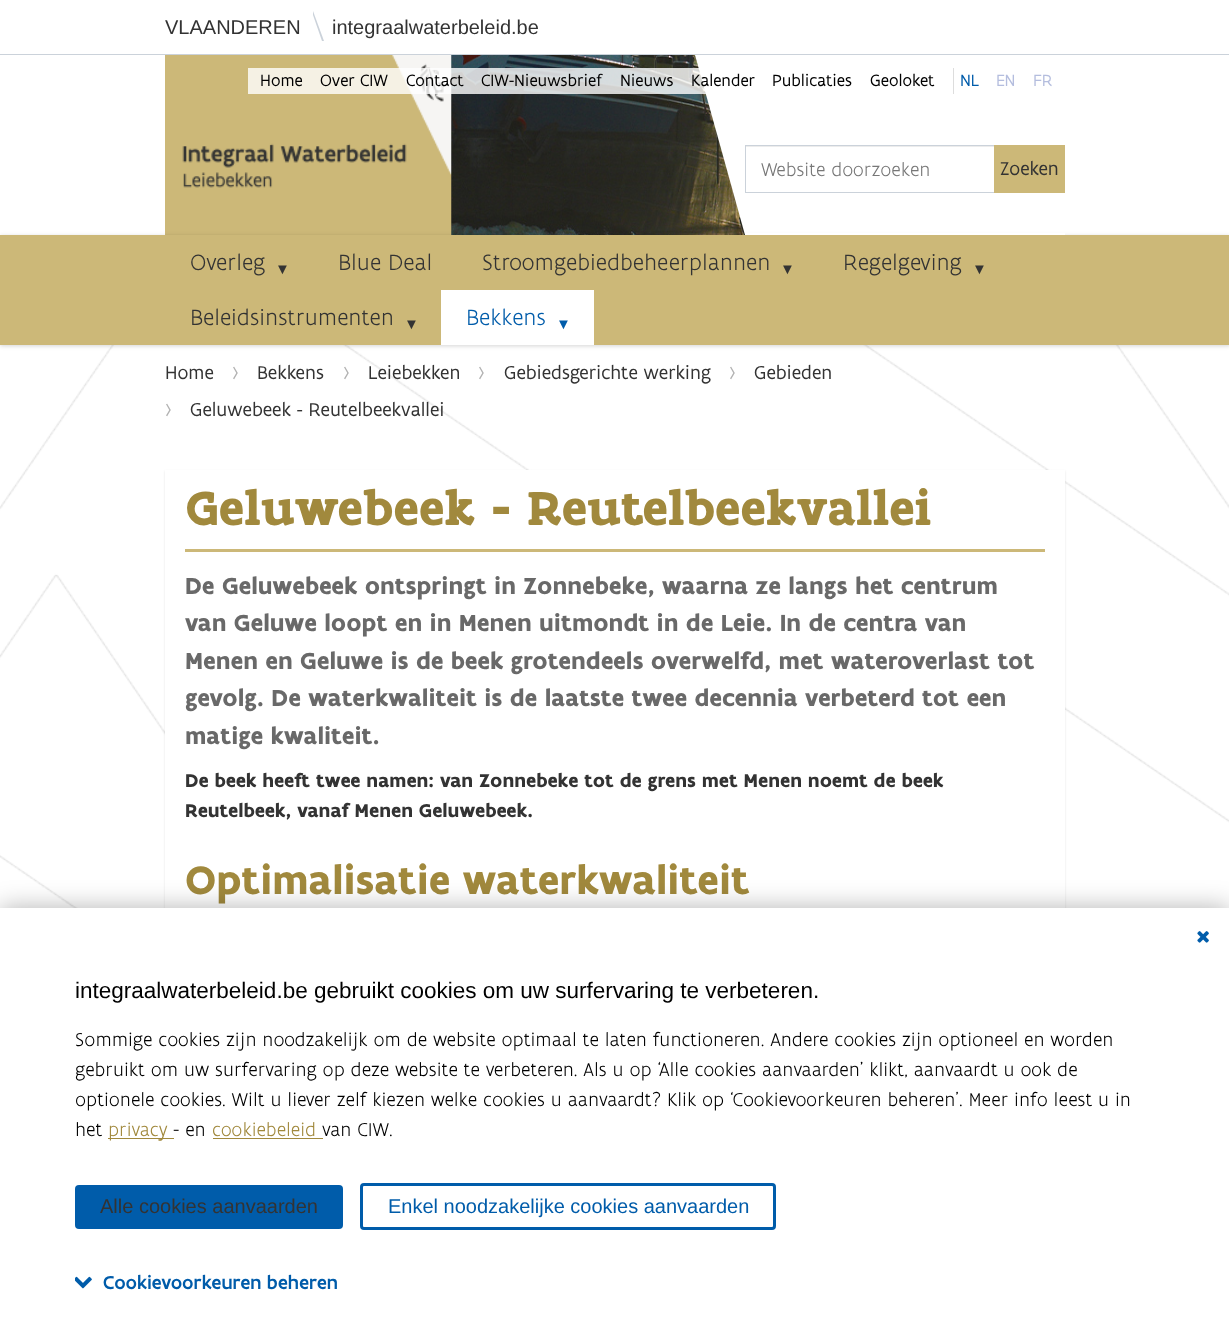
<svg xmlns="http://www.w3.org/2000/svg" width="1229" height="1335">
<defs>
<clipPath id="clip1"><rect x="313" width="226" height="55"/></clipPath>
</defs>
<rect width="100%" height="100%" fill="#fff"/>
<image x="0" y="345" width="1229" height="563" href="media/1.png"/>
<rect y="54" width="1229" height="1" fill="#cbd2da"/>
<text x="165" y="34" style="font-family:Liberation Sans;font-size:20px;fill:#333">VLAANDEREN</text>
<g clip-path="url(#clip1)">
<path d="M304-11h1l19 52h-2z" fill="#cbd2da"/>
</g>
<text x="332" y="34" style="font-family:Liberation Sans;font-size:20px;fill:#333">integraalwaterbeleid.be</text>
<image x="451" y="55" width="294" height="180" href="media/2.png"/>
<image x="165" y="55" width="287" height="180" href="media/3.png"/>
<rect y="236" width="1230" height="110" fill="#0000002b" filter="blur(2px)"/>
<path d="M695 55h50v180z" fill="#fff"/>
<rect x="248" y="68" width="458" height="26" fill="#ffffffcc"/>
<text x="260" y="86" style="font-family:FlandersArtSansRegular;font-size:17.5px;fill:#000">Home</text>
<text x="320" y="86" style="font-family:FlandersArtSansRegular;font-size:17.5px;fill:#000">Over CIW</text>
<text x="406" y="86" style="font-family:FlandersArtSansRegular;font-size:17.5px;fill:#000">Contact</text>
<text x="481" y="86" style="font-family:FlandersArtSansRegular;font-size:17.5px;fill:#000">CIW-Nieuwsbrief</text>
<text x="620" y="86" style="font-family:FlandersArtSansRegular;font-size:17.5px;fill:#000">Nieuws</text>
<text x="691" y="86" style="font-family:FlandersArtSansRegular;font-size:17.5px;fill:#000">Kalender</text>
<text x="772" y="86" style="font-family:FlandersArtSansRegular;font-size:17.5px;fill:#000">Publicaties</text>
<text x="870" y="86" style="font-family:FlandersArtSansRegular;font-size:17.5px;fill:#000">Geoloket</text>
<rect x="953" y="68" width="1" height="26" fill="#ddd"/>
<text x="960" y="86" style="font-family:FlandersArtSansRegular;font-size:17.5px;fill:#005caa">NL</text>
<text x="996" y="86" style="font-family:FlandersArtSansRegular;font-size:17.5px;fill:#b4bdde">EN</text>
<text x="1033" y="86" style="font-family:FlandersArtSansRegular;font-size:17.5px;fill:#b4bdde">FR</text>
<rect x="745" y="233" width="320" height="2" fill="#fff"/>
<rect x="746" y="146" width="248" height="1" fill="#ececec"/>
<rect x="745.5" y="145.5" width="249" height="47" fill="none" stroke="#cbd2da"/>
<text x="761" y="176" style="font-family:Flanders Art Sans;font-size:20px;font-weight:300;fill:#777">Website doorzoeken</text>
<rect x="994" y="145" width="71" height="48" fill="#ccb878"/>
<text x="1000" y="175" style="font-family:FlandersArtSansRegular;font-size:20px;fill:#333">Zoeken</text>
<rect y="235" width="1229" height="110" fill="#ccb878"/>
<text x="190" y="270" style="font-family:Flanders Art Sans;font-size:23.75px;font-weight:300;fill:#333">Overleg</text>
<text x="275" y="274" style="font-family:Liberation Sans;font-size:15px;font-weight:bold;fill:#333">▼</text>
<text x="338" y="270" style="font-family:Flanders Art Sans;font-size:23.75px;font-weight:300;fill:#333">Blue Deal</text>
<text x="482" y="270" style="font-family:Flanders Art Sans;font-size:23.75px;font-weight:300;fill:#333">Stroomgebiedbeheerplannen</text>
<text x="780" y="274" style="font-family:Liberation Sans;font-size:15px;font-weight:bold;fill:#333">▼</text>
<text x="843" y="270" style="font-family:Flanders Art Sans;font-size:23.75px;font-weight:300;fill:#333">Regelgeving</text>
<text x="972" y="274" style="font-family:Liberation Sans;font-size:15px;font-weight:bold;fill:#333">▼</text>
<text x="190" y="325" style="font-family:Flanders Art Sans;font-size:23.75px;font-weight:300;fill:#333">Beleidsinstrumenten</text>
<text x="404" y="329" style="font-family:Liberation Sans;font-size:15px;font-weight:bold;fill:#333">▼</text>
<rect x="441" y="290" width="153" height="55" fill="#fff"/>
<text x="466" y="325" style="font-family:Flanders Art Sans;font-size:23.75px;font-weight:300;fill:#005caa">Bekkens</text>
<text x="556" y="329" style="font-family:Liberation Sans;font-size:15px;font-weight:bold;fill:#005caa">▼</text>
<text x="165" y="379" style="font-family:FlandersArtSansRegular;font-size:20px;fill:#333">Home</text>
<text x="232" y="379" style="font-family:FlandersArtSansRegular;font-size:17.5px;fill:#b2b2b2">›</text>
<text x="257" y="379" style="font-family:FlandersArtSansRegular;font-size:20px;fill:#333">Bekkens</text>
<text x="343" y="379" style="font-family:FlandersArtSansRegular;font-size:17.5px;fill:#b2b2b2">›</text>
<text x="368" y="379" style="font-family:FlandersArtSansRegular;font-size:20px;fill:#333">Leiebekken</text>
<text x="478" y="379" style="font-family:FlandersArtSansRegular;font-size:17.5px;fill:#b2b2b2">›</text>
<text x="504" y="379" style="font-family:FlandersArtSansRegular;font-size:20px;fill:#333">Gebiedsgerichte werking</text>
<text x="729" y="379" style="font-family:FlandersArtSansRegular;font-size:17.5px;fill:#b2b2b2">›</text>
<text x="754" y="379" style="font-family:FlandersArtSansRegular;font-size:20px;fill:#333">Gebieden</text>
<text x="165" y="416" style="font-family:FlandersArtSansRegular;font-size:17.5px;fill:#b2b2b2">›</text>
<text x="190" y="416" style="font-family:FlandersArtSansRegular;font-size:20px;fill:#333">Geluwebeek - Reutelbeekvallei</text>
<rect x="165" y="471" width="900" height="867" fill="#0000001a" filter="blur(1px)"/>
<rect x="165" y="470" width="900" height="438" fill="#fff"/>
<rect x="185" y="549" width="860" height="3" fill="#ccb878"/>
<text x="185" y="525" style="font-family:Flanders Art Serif;font-size:51.25px;font-weight:bold;fill:#a1893d">Geluwebeek - Reutelbeekvallei</text>
<text x="185" y="594" style="font-family:Flanders Art Sans;font-size:25px;font-weight:bold;fill:#696969">De Geluwebeek ontspringt in Zonnebeke, waarna ze langs het centrum</text>
<text x="185" y="631" style="font-family:Flanders Art Sans;font-size:25px;font-weight:bold;fill:#696969">van Geluwe loopt en in Menen uitmondt in de Leie. In de centra van</text>
<text x="185" y="669" style="font-family:Flanders Art Sans;font-size:25px;font-weight:bold;fill:#696969">Menen en Geluwe is de beek grotendeels overwelfd, met wateroverlast tot</text>
<text x="185" y="706" style="font-family:Flanders Art Sans;font-size:25px;font-weight:bold;fill:#696969">gevolg. De waterkwaliteit is de laatste twee decennia verbeterd tot een</text>
<text x="185" y="744" style="font-family:Flanders Art Sans;font-size:25px;font-weight:bold;fill:#696969">matige kwaliteit.</text>
<text x="185" y="787" style="font-family:Flanders Art Sans;font-size:20px;font-weight:bold;fill:#333">De beek heeft twee namen: van Zonnebeke tot de grens met Menen noemt de beek</text>
<text x="185" y="817" style="font-family:Flanders Art Sans;font-size:20px;font-weight:bold;fill:#333">Reutelbeek, vanaf Menen Geluwebeek.</text>
<text x="185" y="894" style="font-family:Flanders Art Sans;font-size:42.5px;font-weight:bold;fill:#a1893d">Optimalisatie waterkwaliteit</text>
<rect y="908" width="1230" height="427" fill="#0000004d" filter="blur(13px)"/>
<rect y="908" width="1229" height="427" fill="#fff"/>
<image x="1197" y="931" width="12" height="12" href="media/4.png"/>
<text x="75" y="998" style="font-family:Liberation Sans;font-size:22.5px;fill:#000">integraalwaterbeleid.be gebruikt cookies om uw surfervaring te verbeteren.</text>
<text x="75" y="1046" style="font-family:Flanders Art Sans;font-size:20px;font-weight:300;fill:#000">Sommige cookies zijn noodzakelijk om de website optimaal te laten functioneren. Andere cookies zijn optioneel en worden</text>
<text x="75" y="1076" style="font-family:Flanders Art Sans;font-size:20px;font-weight:300;fill:#000">gebruikt om uw surfervaring op deze website te verbeteren. Als u op ‘Alle cookies aanvaarden’ klikt, aanvaardt u ook de</text>
<text x="75" y="1106" style="font-family:Flanders Art Sans;font-size:20px;font-weight:300;fill:#000">optionele cookies. Wilt u liever zelf kiezen welke cookies u aanvaardt? Klik op ‘Cookievoorkeuren beheren’. Meer info leest u in</text>
<text x="75" y="1136" style="font-family:Flanders Art Sans;font-size:20px;font-weight:300;fill:#000">het</text>
<rect x="108" y="1138" width="66" height="1" fill="#a1893d"/>
<text x="108" y="1136" style="font-family:Flanders Art Sans;font-size:20px;font-weight:300;fill:#a1893d">privacy</text>
<text x="173" y="1136" style="font-family:Flanders Art Sans;font-size:20px;font-weight:300;fill:#000">- en</text>
<text x="212" y="1136" style="font-family:Flanders Art Sans;font-size:20px;font-weight:300;fill:#a1893d">cookiebeleid</text>
<rect x="213" y="1138" width="110" height="1" fill="#a1893d"/>
<text x="322" y="1136" style="font-family:Flanders Art Sans;font-size:20px;font-weight:300;fill:#000">van CIW.</text>
<rect x="75" y="1185" width="268" height="44" rx="4" fill="#005caa"/>
<text x="100" y="1213" style="font-family:Liberation Sans;font-size:20px;fill:#333">Alle cookies aanvaarden</text>
<rect x="361.5" y="1184.5" width="413" height="44" rx="2.5" fill="none" stroke="#005caa" stroke-width="3"/>
<text x="388" y="1213" style="font-family:Liberation Sans;font-size:20px;fill:#005caa">Enkel noodzakelijke cookies aanvaarden</text>
<image x="75" y="1276" width="17" height="13" href="media/5.png"/>
<text x="103" y="1289" style="font-family:Flanders Art Sans;font-size:20px;font-weight:500;fill:#005caa">Cookievoorkeuren beheren</text>
</svg>
